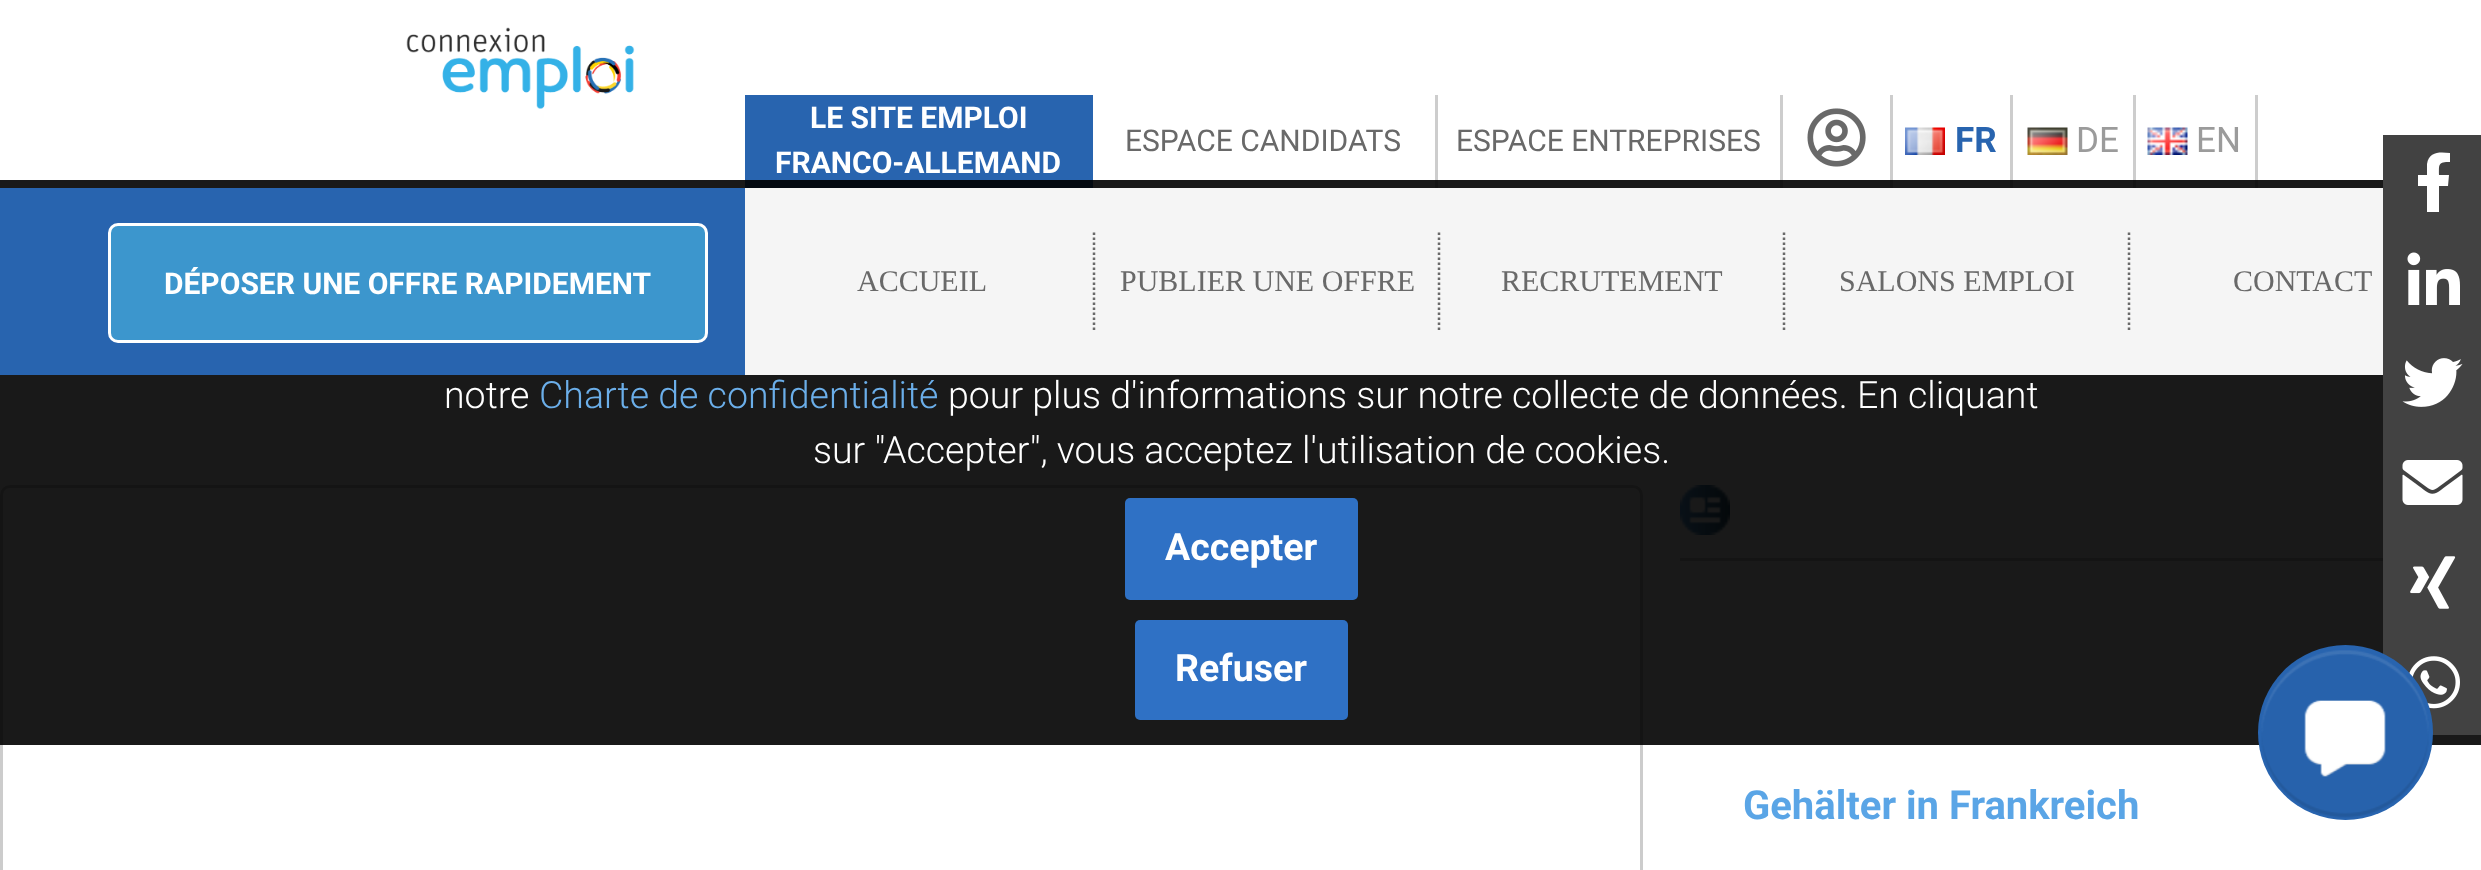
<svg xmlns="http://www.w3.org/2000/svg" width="2481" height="870">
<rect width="100%" height="100%" fill="#fff"/>
<image x="406" y="27" width="229" height="82" href="media/1.png"/>
<rect x="745" y="95" width="348" height="93" fill="#2864af"/>
<text x="810" y="128" style="font-family:Roboto;font-size:30px;font-weight:bold;fill:#fff">LE SITE EMPLOI</text>
<text x="775" y="173" style="font-family:Roboto;font-size:30px;font-weight:bold;fill:#fff">FRANCO-ALLEMAND</text>
<rect x="1435" y="95" width="3" height="93" fill="#cdcdcd"/>
<text x="1125" y="151" style="font-family:Roboto;font-size:30px;fill:#696969">ESPACE CANDIDATS</text>
<rect x="1780" y="95" width="3" height="93" fill="#cdcdcd"/>
<text x="1456" y="151" style="font-family:Roboto;font-size:30px;fill:#696969">ESPACE ENTREPRISES</text>
<rect x="1890" y="95" width="3" height="93" fill="#cdcdcd"/>
<image x="1807" y="108" width="59" height="59" href="media/2.png"/>
<rect x="2010" y="95" width="3" height="93" fill="#cdcdcd"/>
<image x="1905" y="127" width="40" height="28" href="media/3.png"/>
<text x="1955" y="152" style="font-family:Roboto;font-size:35px;font-weight:bold;fill:#2864af">FR</text>
<rect x="2133" y="95" width="3" height="93" fill="#cdcdcd"/>
<image x="2027" y="127" width="41" height="28" href="media/4.png"/>
<text x="2076" y="152" style="font-family:Roboto;font-size:35px;fill:#9b9b9b">DE</text>
<rect x="2255" y="95" width="3" height="93" fill="#cdcdcd"/>
<image x="2147" y="127" width="41" height="28" href="media/5.png"/>
<text x="2196" y="152" style="font-family:Roboto;font-size:35px;fill:#9b9b9b">EN</text>
<rect x="1.5" y="486.5" width="1640" height="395" rx="8.5" fill="none" stroke="#ccc" stroke-width="3"/>
<image x="1680" y="485" width="50" height="50" href="media/6.png"/>
<rect x="1680" y="558" width="703" height="3" fill="#ccc"/>
<rect y="180" width="2481" height="565" fill="#000000e6"/>
<rect y="188" width="745" height="187" fill="#2864af"/>
<rect x="109.5" y="224.5" width="597" height="117" rx="8.5" fill="#3c96cd" stroke="#fff" stroke-width="3"/>
<text x="164" y="294" style="font-family:Roboto;font-size:30px;font-weight:bold;fill:#fff">DÉPOSER UNE OFFRE RAPIDEMENT</text>
<rect x="745" y="188" width="1638" height="187" fill="#f5f5f5"/>
<path d="M1094 232.5v100" fill="none" stroke="#696969" stroke-width="2.5" stroke-dasharray="2.5 2.5"/>
<text x="857" y="291" style="font-family:Liberation Serif;font-size:30px;fill:#696969">ACCUEIL</text>
<path d="M1439 232.5v100" fill="none" stroke="#696969" stroke-width="2.5" stroke-dasharray="2.5 2.5"/>
<text x="1120" y="291" style="font-family:Liberation Serif;font-size:30px;fill:#696969">PUBLIER UNE OFFRE</text>
<path d="M1784 232.5v100" fill="none" stroke="#696969" stroke-width="2.5" stroke-dasharray="2.5 2.5"/>
<text x="1501" y="291" style="font-family:Liberation Serif;font-size:30px;fill:#696969">RECRUTEMENT</text>
<path d="M2129 232.5v100" fill="none" stroke="#696969" stroke-width="2.5" stroke-dasharray="2.5 2.5"/>
<text x="1839" y="291" style="font-family:Liberation Serif;font-size:30px;fill:#696969">SALONS EMPLOI</text>
<text x="2233" y="291" style="font-family:Liberation Serif;font-size:30px;fill:#696969">CONTACT</text>
<text x="444" y="408" style="font-family:Roboto;font-size:37.5px;font-weight:300;fill:#fff">notre</text>
<text x="539" y="408" style="font-family:Roboto;font-size:37.5px;font-weight:300;fill:#6baee9">Charte de confidentialité</text>
<text x="948" y="408" style="font-family:Roboto;font-size:37.5px;font-weight:300;fill:#fff">pour plus d'informations sur notre collecte de données. En cliquant</text>
<text x="813" y="463" style="font-family:Roboto;font-size:37.5px;font-weight:300;fill:#fff">sur "Accepter", vous acceptez l'utilisation de cookies.</text>
<rect x="1125" y="498" width="233" height="102" rx="5" fill="#2f71c5"/>
<text x="1165" y="560" style="font-family:Roboto;font-size:37.5px;font-weight:bold;fill:#fff">Accepter</text>
<rect x="1135" y="620" width="213" height="100" rx="5" fill="#2f71c5"/>
<text x="1175" y="681" style="font-family:Roboto;font-size:37.5px;font-weight:bold;fill:#fff">Refuser</text>
<text x="1743" y="819" style="font-family:Roboto;font-size:40px;font-weight:bold;fill:#5aa5e6">Gehälter in Frankreich</text>
<rect x="2383" y="135" width="98" height="600" fill="#424242"/>
<path d="M2448 186h-9v26h-12v-26h-9v-11h9v-11c2-13 13-12 23-11v9c-12 0-11 2-11 13h10z" fill="#fff"/>
<image x="2407" y="252" width="53" height="53" href="media/7.png"/>
<image x="2402" y="358" width="61" height="49" href="media/8.png"/>
<image x="2402" y="460" width="61" height="45" href="media/9.png"/>
<image x="2410" y="556" width="46" height="53" href="media/10.png"/>
<image x="2409" y="656" width="51" height="53" href="media/11.png"/>
<circle cx="2345.5" cy="732.5" r="87.5" fill="#2864af"/>
<image x="2261" y="650" width="168" height="168" href="media/12.png"/>
</svg>
